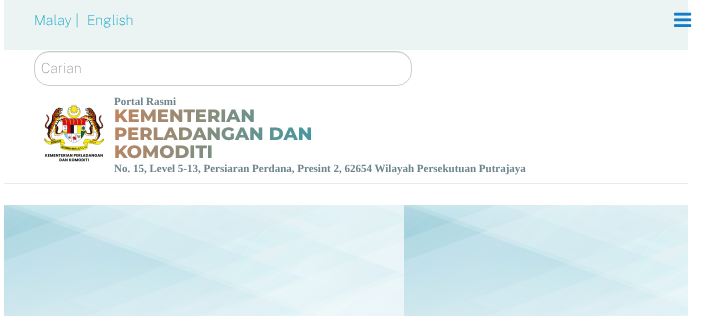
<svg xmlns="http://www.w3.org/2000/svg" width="709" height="316">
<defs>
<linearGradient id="g1" gradientUnits="userSpaceOnUse" x1="58" y1="56" x2="390" y2="212"><stop offset="0" stop-color="#908cc9"/><stop offset="0" stop-color="#009eba"/><stop offset="0" stop-color="#f37d45"/><stop offset="1" stop-color="#00a2c3"/></linearGradient>
</defs>
<rect width="100%" height="100%" fill="#fff"/>
<rect x="4" width="684" height="50" fill="#ecf3f3"/>
<text x="34" y="25" style="font-family:Public Sans;font-size:14px;font-weight:100;fill:#00a2c3">Malay |</text>
<text x="87" y="25" style="font-family:Public Sans;font-size:14px;font-weight:100;fill:#00a2c3">English</text>
<path d="M49 53h348c8 0 14 6 14 14v-1c0-8-6-14-14-14h-348c-8 0-14 6-14 14v1c0-8 6-14 14-14z" fill="#ececec"/>
<rect x="34.5" y="51.5" width="377" height="34" rx="14.5" fill="none" stroke="#00000033"/>
<text x="41" y="73" style="font-family:Public Sans;font-size:14px;font-weight:100;fill:#999">Carian</text>
<rect x="4" y="183" width="684" height="1" fill="#ebebeb"/>
<text x="114" y="105" style="font-family:Liberation Serif;font-size:11px;font-weight:bold;fill:#6c848d">Portal Rasmi</text>
<image x="44" y="104" width="60" height="58" href="media/1.png"/>
<text x="114" y="122" style="font-family:Montserrat;font-size:18px;font-weight:800;fill:url(#g1)">KEMENTERIAN</text>
<text x="114" y="140" style="font-family:Montserrat;font-size:18px;font-weight:800;fill:url(#g1)">PERLADANGAN DAN</text>
<text x="114" y="158" style="font-family:Montserrat;font-size:18px;font-weight:800;fill:url(#g1)">KOMODITI</text>
<text x="114" y="172" style="font-family:Liberation Serif;font-size:11px;font-weight:bold;fill:#6c848d">No. 15, Level 5-13, Persiaran Perdana, Presint 2, 62654 Wilayah Persekutuan Putrajaya</text>
<image x="674" y="12" width="18" height="15" href="media/2.png"/>
<image x="4" y="205" width="684" height="111" href="media/3.png"/>
</svg>
